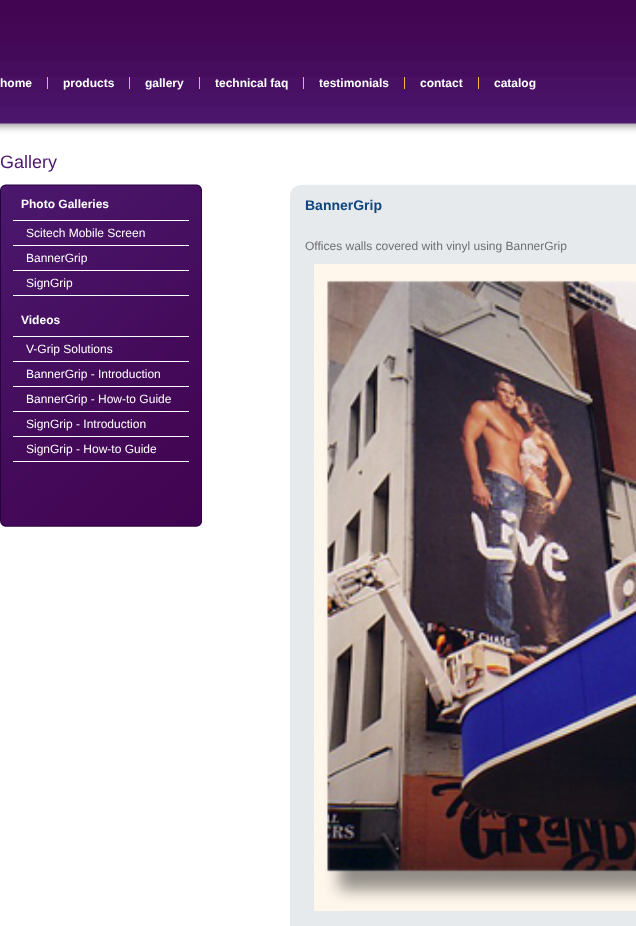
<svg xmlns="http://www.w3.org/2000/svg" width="636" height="926">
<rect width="100%" height="100%" fill="#fff"/>
<image x="0" y="0" width="636" height="134" href="media/1.png"/>
<text x="0" y="87" style="font-family:Liberation Sans;font-size:12px;font-weight:bold;fill:#fff">home</text>
<rect x="47" y="77" width="1" height="12" fill="#fdb73b"/>
<text x="63" y="87" style="font-family:Liberation Sans;font-size:12px;font-weight:bold;fill:#fff">products</text>
<rect x="129" y="77" width="1" height="12" fill="#fdb73b"/>
<text x="145" y="87" style="font-family:Liberation Sans;font-size:12px;font-weight:bold;fill:#fff">gallery</text>
<rect x="199" y="77" width="1" height="12" fill="#fdb73b"/>
<text x="215" y="87" style="font-family:Liberation Sans;font-size:12px;font-weight:bold;fill:#fff">technical faq</text>
<rect x="303" y="77" width="1" height="12" fill="#fdb73b"/>
<text x="319" y="87" style="font-family:Liberation Sans;font-size:12px;font-weight:bold;fill:#fff">testimonials</text>
<rect x="404" y="77" width="1" height="12" fill="#fdb73b"/>
<text x="420" y="87" style="font-family:Liberation Sans;font-size:12px;font-weight:bold;fill:#fff">contact</text>
<rect x="478" y="77" width="1" height="12" fill="#fdb73b"/>
<text x="494" y="87" style="font-family:Liberation Sans;font-size:12px;font-weight:bold;fill:#fff">catalog</text>
<text x="0" y="168" style="font-family:Liberation Sans;font-size:18px;fill:#4b186e">Gallery</text>
<image x="0" y="184" width="202" height="343" href="media/2.png"/>
<rect x="13" y="220" width="176" height="1" fill="#fff"/>
<text x="21" y="208" style="font-family:Liberation Sans;font-size:12px;font-weight:bold;fill:#fff">Photo Galleries</text>
<rect x="13" y="245" width="176" height="1" fill="#fff"/>
<text x="26" y="237" style="font-family:Liberation Sans;font-size:12px;fill:#fff">Scitech Mobile Screen</text>
<rect x="13" y="270" width="176" height="1" fill="#fff"/>
<text x="26" y="262" style="font-family:Liberation Sans;font-size:12px;fill:#fff">BannerGrip</text>
<rect x="13" y="295" width="176" height="1" fill="#fff"/>
<text x="26" y="287" style="font-family:Liberation Sans;font-size:12px;fill:#fff">SignGrip</text>
<rect x="13" y="336" width="176" height="1" fill="#fff"/>
<text x="21" y="324" style="font-family:Liberation Sans;font-size:12px;font-weight:bold;fill:#fff">Videos</text>
<rect x="13" y="361" width="176" height="1" fill="#fff"/>
<text x="26" y="353" style="font-family:Liberation Sans;font-size:12px;fill:#fff">V-Grip Solutions</text>
<rect x="13" y="386" width="176" height="1" fill="#fff"/>
<text x="26" y="378" style="font-family:Liberation Sans;font-size:12px;fill:#fff">BannerGrip - Introduction</text>
<rect x="13" y="411" width="176" height="1" fill="#fff"/>
<text x="26" y="403" style="font-family:Liberation Sans;font-size:12px;fill:#fff">BannerGrip - How-to Guide</text>
<rect x="13" y="436" width="176" height="1" fill="#fff"/>
<text x="26" y="428" style="font-family:Liberation Sans;font-size:12px;fill:#fff">SignGrip - Introduction</text>
<rect x="13" y="461" width="176" height="1" fill="#fff"/>
<text x="26" y="453" style="font-family:Liberation Sans;font-size:12px;fill:#fff">SignGrip - How-to Guide</text>
<image x="290" y="184" width="346" height="12" href="media/3.png"/>
<rect x="290" y="196" width="346" height="730" fill="#e7eaec"/>
<text x="305" y="210" style="font-family:Liberation Sans;font-size:14px;font-weight:bold;fill:#10447f">BannerGrip</text>
<text x="305" y="250" style="font-family:Liberation Sans;font-size:12px;fill:#6d6e71">Offices walls covered with vinyl using BannerGrip</text>
<image x="314" y="264" width="322" height="647" href="media/4.png"/>
</svg>
